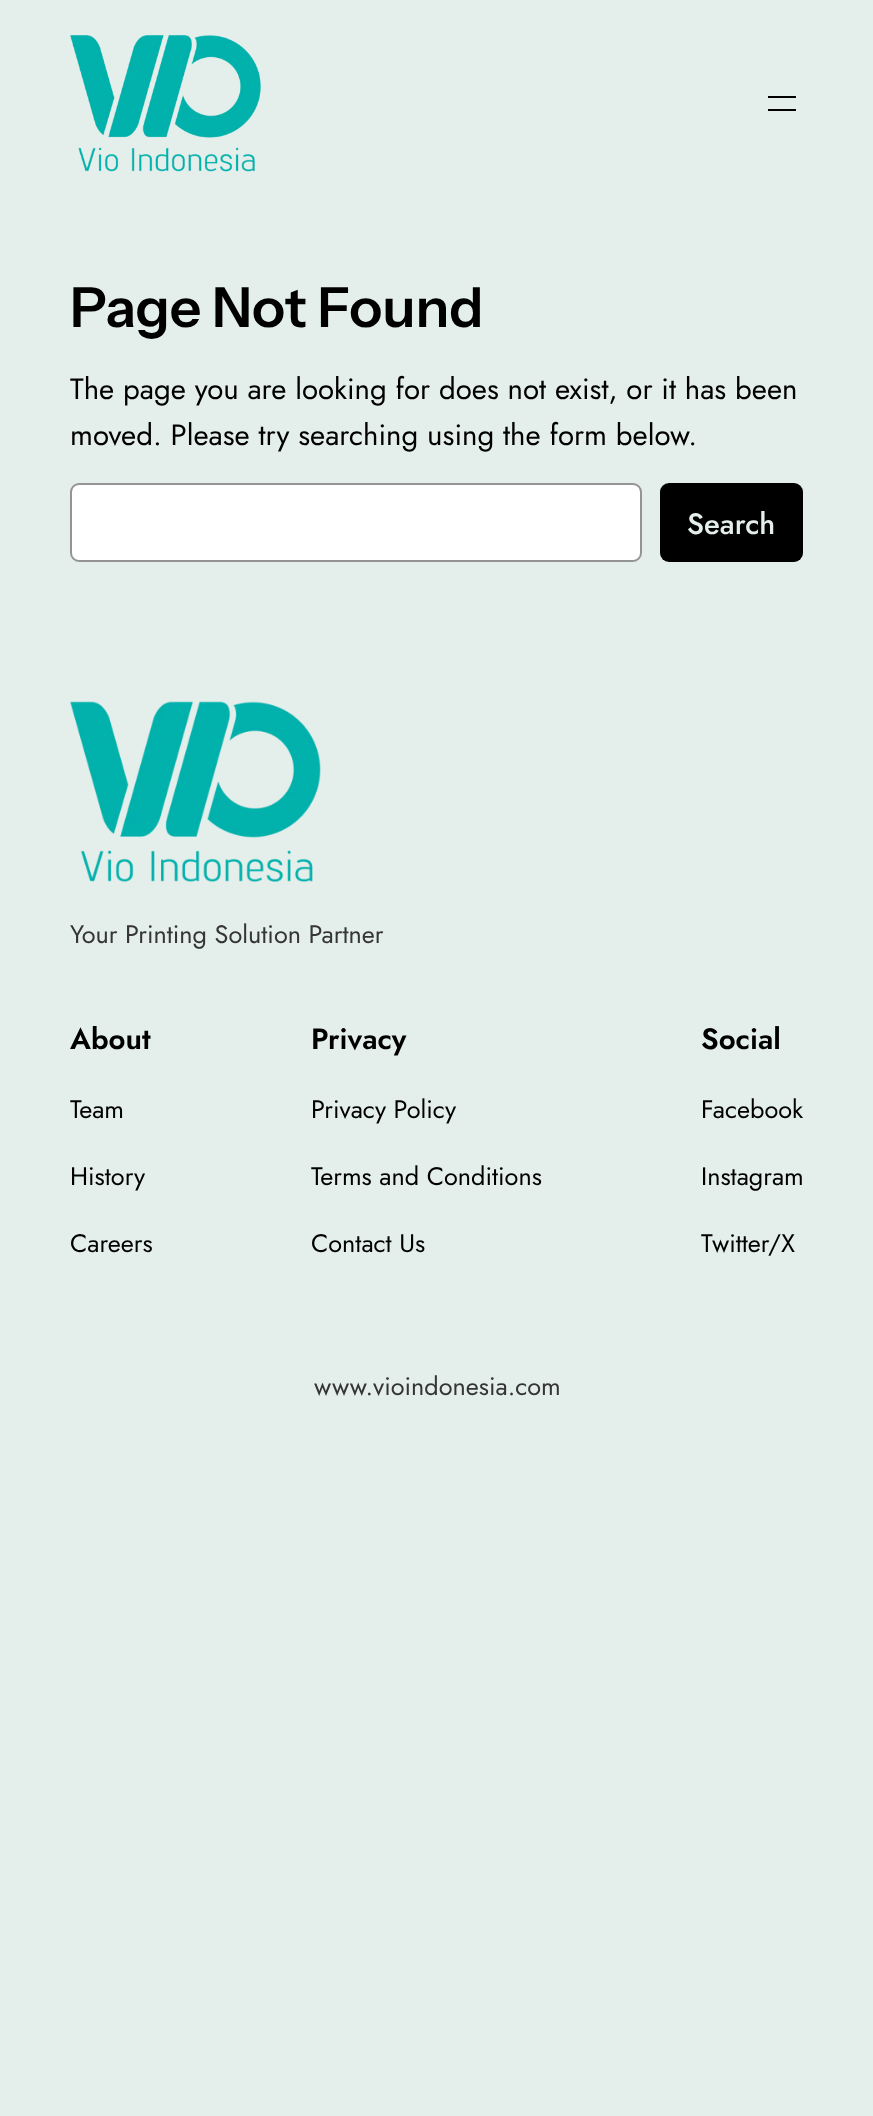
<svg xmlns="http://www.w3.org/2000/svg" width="873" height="2116">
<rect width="100%" height="100%" fill="#e4efeb"/>
<image x="70" y="35" width="191" height="137" href="media/1.png"/>
<rect x="768" y="96" width="28" height="2" fill="#000"/>
<rect x="768" y="109" width="28" height="2" fill="#000"/>
<text x="70" y="327" style="font-family:Instrument Sans;font-size:55.25px;font-weight:600;fill:#000">Page Not Found</text>
<text x="70" y="399" style="font-family:Jost;font-size:29.4px;fill:#000">The page you are looking for does not exist, or it has been</text>
<text x="70" y="445" style="font-family:Jost;font-size:29.4px;fill:#000">moved. Please try searching using the form below.</text>
<rect x="71" y="484" width="570" height="77" rx="8" fill="#fff" stroke="#949494" stroke-width="2"/>
<rect x="660" y="483" width="143" height="79" rx="9" fill="#000"/>
<text x="687" y="534" style="font-family:Jost;font-size:29.4px;font-weight:500;fill:#e4efeb">Search</text>
<image x="70" y="701" width="251" height="181" href="media/2.png"/>
<text x="70" y="943" style="font-family:Jost;font-size:25.25px;fill:#353535">Your Printing Solution Partner</text>
<text x="70" y="1049" style="font-family:Jost;font-size:29.4px;font-weight:600;fill:#000">About</text>
<text x="70" y="1118" style="font-family:Jost;font-size:25.25px;fill:#000">Team</text>
<text x="70" y="1185" style="font-family:Jost;font-size:25.25px;fill:#000">History</text>
<text x="70" y="1252" style="font-family:Jost;font-size:25.25px;fill:#000">Careers</text>
<text x="311" y="1049" style="font-family:Jost;font-size:29.4px;font-weight:600;fill:#000">Privacy</text>
<text x="311" y="1118" style="font-family:Jost;font-size:25.25px;fill:#000">Privacy Policy</text>
<text x="311" y="1185" style="font-family:Jost;font-size:25.25px;fill:#000">Terms and Conditions</text>
<text x="311" y="1252" style="font-family:Jost;font-size:25.25px;fill:#000">Contact Us</text>
<text x="701" y="1049" style="font-family:Jost;font-size:29.4px;font-weight:600;fill:#000">Social</text>
<text x="701" y="1118" style="font-family:Jost;font-size:25.25px;fill:#000">Facebook</text>
<text x="701" y="1185" style="font-family:Jost;font-size:25.25px;fill:#000">Instagram</text>
<text x="701" y="1252" style="font-family:Jost;font-size:25.25px;fill:#000">Twitter/X</text>
<text x="314" y="1395" style="font-family:Jost;font-size:25.25px;fill:#353535">www.vioindonesia.com</text>
</svg>
